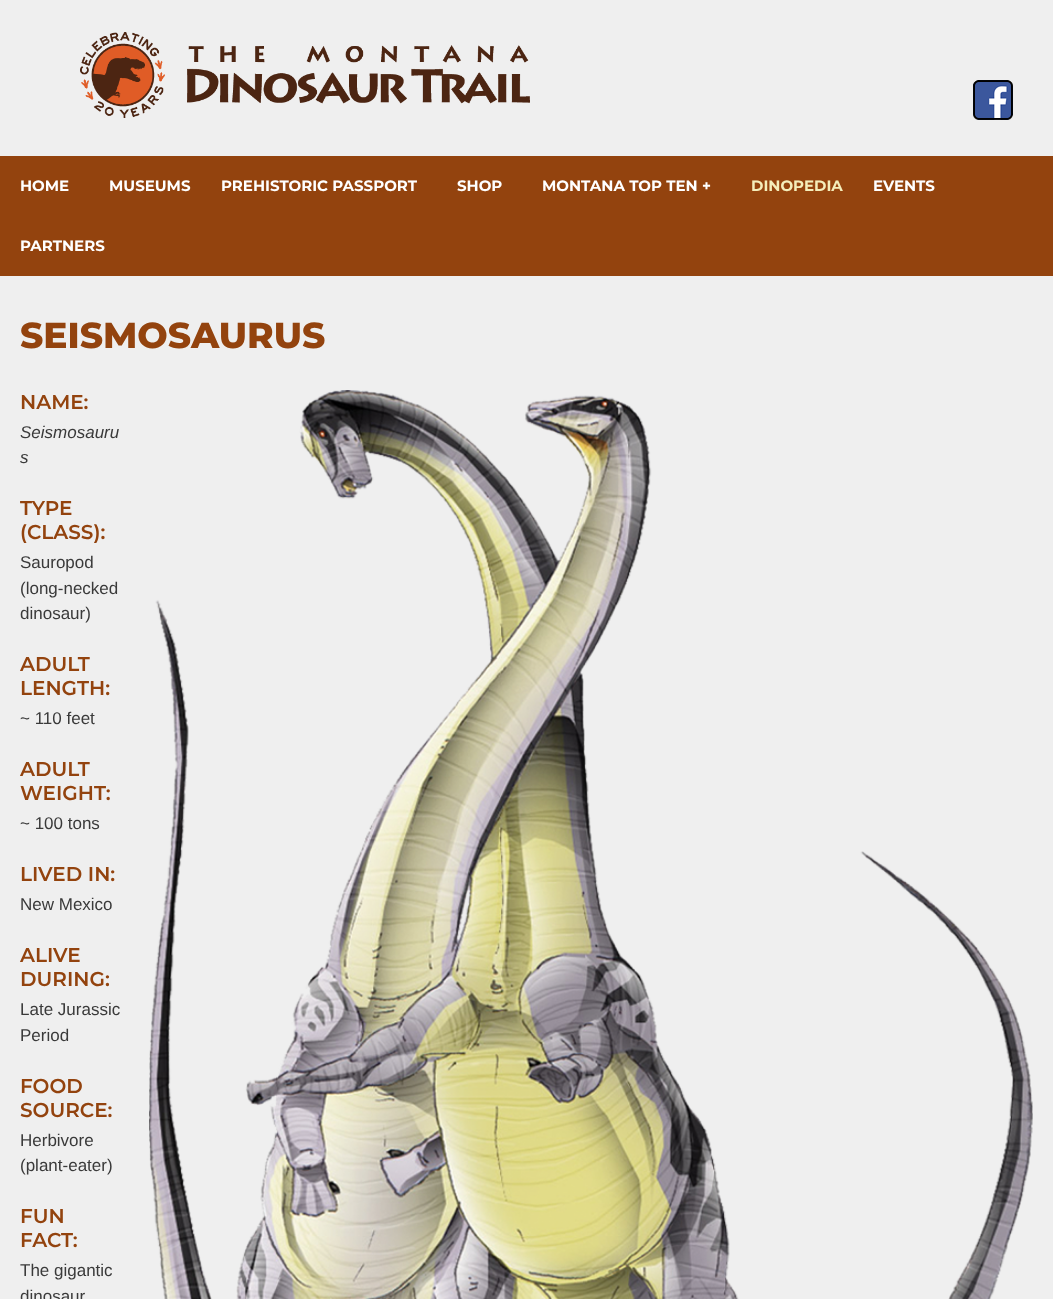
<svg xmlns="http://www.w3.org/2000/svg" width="1053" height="1299">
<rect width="100%" height="100%" fill="#efefef"/>
<image x="80" y="32" width="450" height="86" href="media/1.png"/>
<image x="973" y="80" width="40" height="40" href="media/2.png"/>
<rect y="156" width="1053" height="120" fill="#93430e"/>
<text x="20" y="191" style="font-family:Montserrat;font-size:15px;font-weight:bold;fill:#fff">HOME</text>
<text x="109" y="191" style="font-family:Montserrat;font-size:15px;font-weight:bold;fill:#fff">MUSEUMS</text>
<text x="221" y="191" style="font-family:Montserrat;font-size:15px;font-weight:bold;fill:#fff">PREHISTORIC PASSPORT</text>
<text x="457" y="191" style="font-family:Montserrat;font-size:15px;font-weight:bold;fill:#fff">SHOP</text>
<text x="542" y="191" style="font-family:Montserrat;font-size:15px;font-weight:bold;fill:#fff">MONTANA TOP TEN +</text>
<text x="751" y="191" style="font-family:Montserrat;font-size:15px;font-weight:bold;fill:#f5eebb">DINOPEDIA</text>
<text x="873" y="191" style="font-family:Montserrat;font-size:15px;font-weight:bold;fill:#fff">EVENTS</text>
<text x="20" y="251" style="font-family:Montserrat;font-size:15px;font-weight:bold;fill:#fff">PARTNERS</text>
<text x="20" y="348" style="font-family:Montserrat;font-size:36px;font-weight:800;fill:#93430e">SEISMOSAURUS</text>
<text x="20" y="409" style="font-family:Montserrat;font-size:20px;font-weight:600;fill:#93430e">NAME:</text>
<image x="149" y="390" width="884" height="909" href="media/3.png"/>
<text x="20" y="438" style="font-family:Liberation Sans;font-size:17px;font-style:italic;fill:#3a3a3a">Seismosauru</text>
<text x="20" y="463" style="font-family:Liberation Sans;font-size:17px;font-style:italic;fill:#3a3a3a">s</text>
<text x="20" y="515" style="font-family:Montserrat;font-size:20px;font-weight:600;fill:#93430e">TYPE</text>
<text x="20" y="539" style="font-family:Montserrat;font-size:20px;font-weight:600;fill:#93430e">(CLASS):</text>
<text x="20" y="568" style="font-family:Liberation Sans;font-size:17px;fill:#3a3a3a">Sauropod</text>
<text x="20" y="594" style="font-family:Liberation Sans;font-size:17px;fill:#3a3a3a">(long-necked</text>
<text x="20" y="619" style="font-family:Liberation Sans;font-size:17px;fill:#3a3a3a">dinosaur)</text>
<text x="20" y="671" style="font-family:Montserrat;font-size:20px;font-weight:600;fill:#93430e">ADULT</text>
<text x="20" y="695" style="font-family:Montserrat;font-size:20px;font-weight:600;fill:#93430e">LENGTH:</text>
<text x="20" y="724" style="font-family:Liberation Sans;font-size:17px;fill:#3a3a3a">~ 110 feet</text>
<text x="20" y="776" style="font-family:Montserrat;font-size:20px;font-weight:600;fill:#93430e">ADULT</text>
<text x="20" y="800" style="font-family:Montserrat;font-size:20px;font-weight:600;fill:#93430e">WEIGHT:</text>
<text x="20" y="829" style="font-family:Liberation Sans;font-size:17px;fill:#3a3a3a">~ 100 tons</text>
<text x="20" y="881" style="font-family:Montserrat;font-size:20px;font-weight:600;fill:#93430e">LIVED IN:</text>
<text x="20" y="910" style="font-family:Liberation Sans;font-size:17px;fill:#3a3a3a">New Mexico</text>
<text x="20" y="962" style="font-family:Montserrat;font-size:20px;font-weight:600;fill:#93430e">ALIVE</text>
<text x="20" y="986" style="font-family:Montserrat;font-size:20px;font-weight:600;fill:#93430e">DURING:</text>
<text x="20" y="1015" style="font-family:Liberation Sans;font-size:17px;fill:#3a3a3a">Late Jurassic</text>
<text x="20" y="1041" style="font-family:Liberation Sans;font-size:17px;fill:#3a3a3a">Period</text>
<text x="20" y="1093" style="font-family:Montserrat;font-size:20px;font-weight:600;fill:#93430e">FOOD</text>
<text x="20" y="1117" style="font-family:Montserrat;font-size:20px;font-weight:600;fill:#93430e">SOURCE:</text>
<text x="20" y="1146" style="font-family:Liberation Sans;font-size:17px;fill:#3a3a3a">Herbivore</text>
<text x="20" y="1171" style="font-family:Liberation Sans;font-size:17px;fill:#3a3a3a">(plant-eater)</text>
<text x="20" y="1223" style="font-family:Montserrat;font-size:20px;font-weight:600;fill:#93430e">FUN</text>
<text x="20" y="1247" style="font-family:Montserrat;font-size:20px;font-weight:600;fill:#93430e">FACT:</text>
<text x="20" y="1276" style="font-family:Liberation Sans;font-size:17px;fill:#3a3a3a">The gigantic</text>
<text x="20" y="1302" style="font-family:Liberation Sans;font-size:17px;fill:#3a3a3a">dinosaur</text>
</svg>
